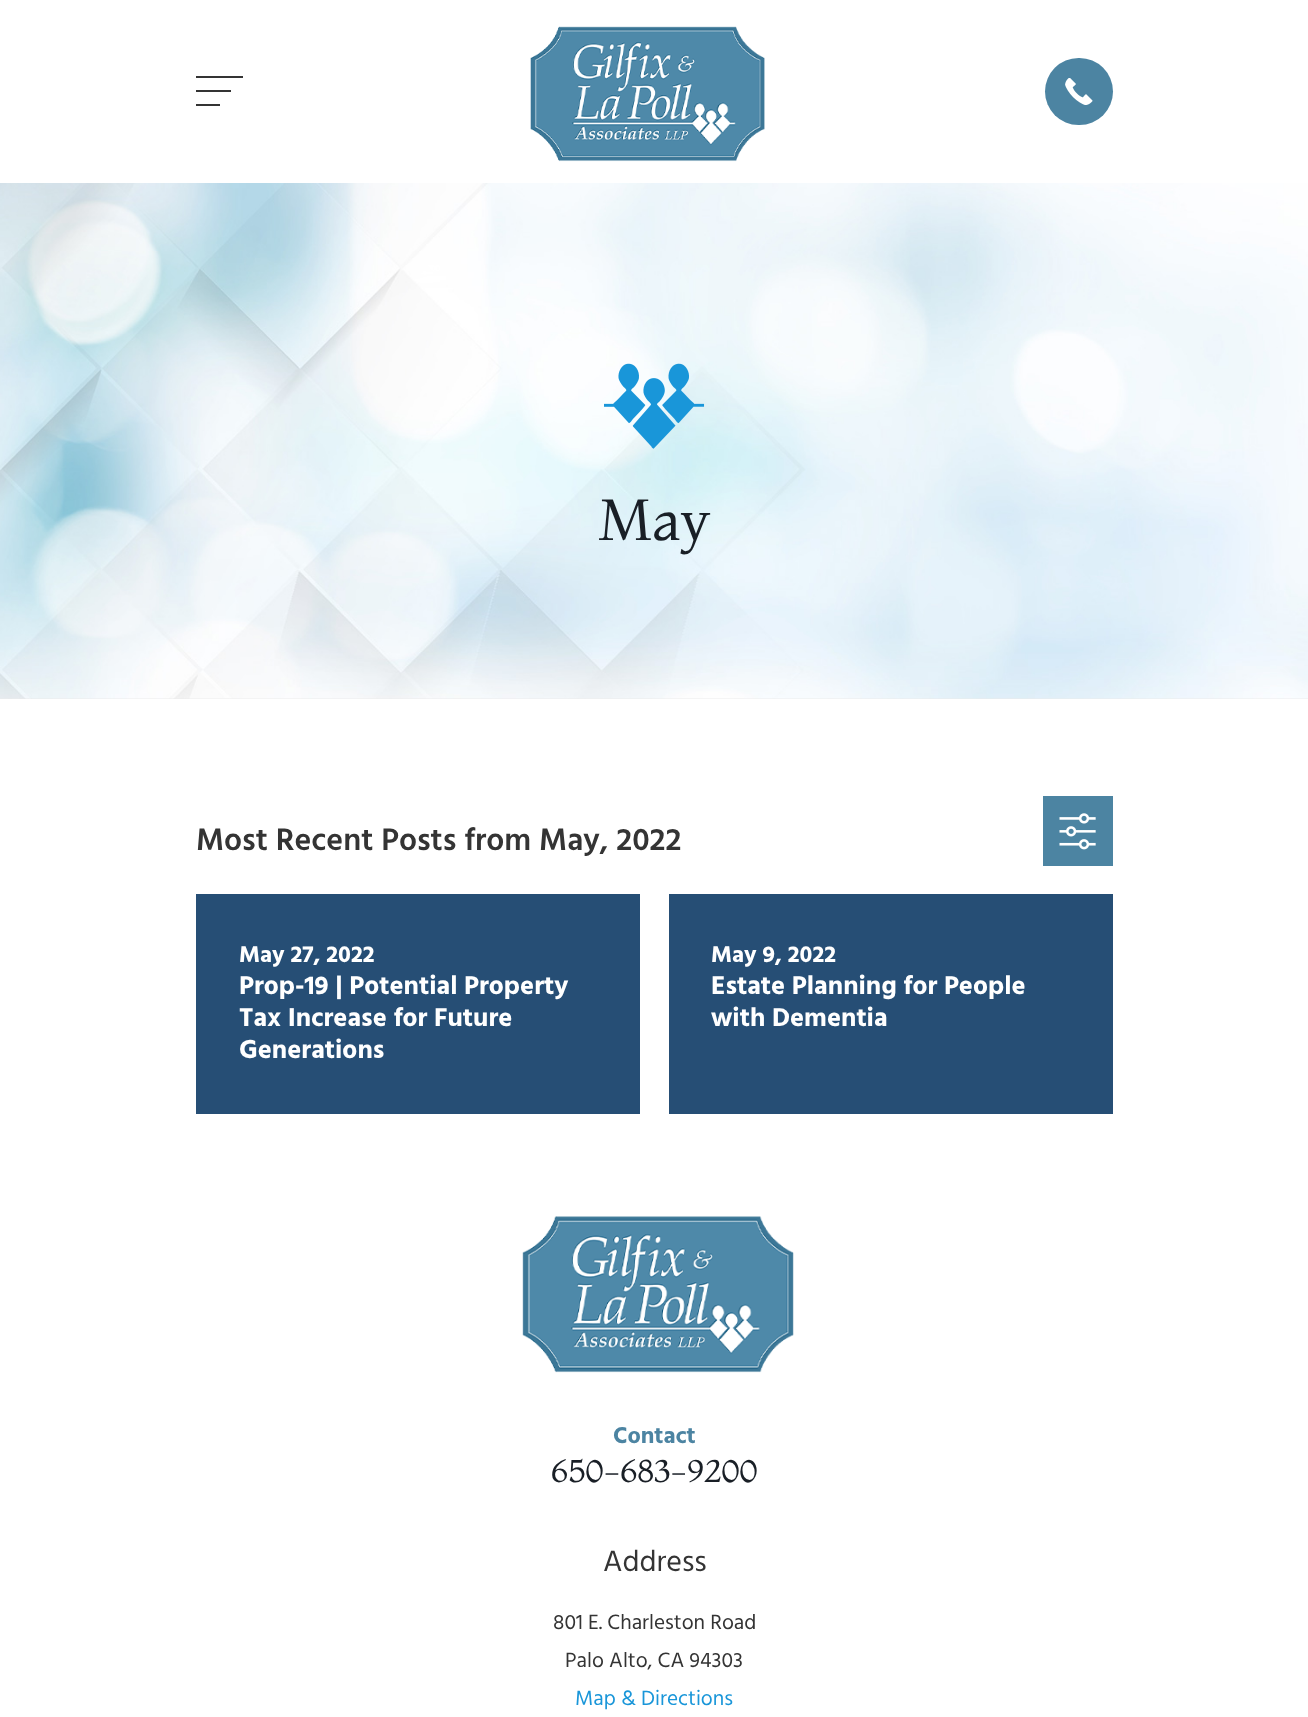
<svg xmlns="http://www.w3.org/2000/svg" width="1308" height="1717">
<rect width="100%" height="100%" fill="#fff"/>
<path d="M196 106v-2h24v2zm0-14v-2h35v2zm0-14v-2h47v2z" fill="#343434"/>
<image x="530" y="26" width="235" height="136" href="media/1.png"/>
<rect x="1045" y="58" width="68" height="67" rx="33.5" fill="#4c84a2"/>
<image x="1065" y="78" width="28" height="27" href="media/2.png"/>
<rect y="698" width="1308" height="1" fill="#ebebeb"/>
<image x="0" y="183" width="1308" height="516" href="media/3.png"/>
<image x="604" y="363" width="101" height="86" href="media/4.png"/>
<text x="598" y="540" style="font-family:Montaga;font-size:58px;fill:#191f26">May</text>
<text x="196" y="850" style="font-family:Hind;font-size:31.9px;font-weight:600;fill:#343434">Most Recent Posts from May, 2022</text>
<rect x="1043" y="796" width="70" height="70" fill="#4c84a2"/>
<image x="1059" y="813" width="37" height="37" href="media/5.png"/>
<rect x="196" y="894" width="444" height="220" fill="#264e75"/>
<text x="239" y="962" style="font-family:Hind;font-size:23.5px;font-weight:bold;fill:#fff">May 27, 2022</text>
<text x="239" y="994" style="font-family:Hind;font-size:26.5px;font-weight:bold;fill:#fff">Prop-19 | Potential Property</text>
<text x="239" y="1026" style="font-family:Hind;font-size:26.5px;font-weight:bold;fill:#fff">Tax Increase for Future</text>
<text x="239" y="1058" style="font-family:Hind;font-size:26.5px;font-weight:bold;fill:#fff">Generations</text>
<rect x="669" y="894" width="444" height="220" fill="#264e75"/>
<text x="711" y="962" style="font-family:Hind;font-size:23.5px;font-weight:bold;fill:#fff">May 9, 2022</text>
<text x="711" y="994" style="font-family:Hind;font-size:26.5px;font-weight:bold;fill:#fff">Estate Planning for People</text>
<text x="711" y="1026" style="font-family:Hind;font-size:26.5px;font-weight:bold;fill:#fff">with Dementia</text>
<image x="522" y="1216" width="272" height="157" href="media/6.png"/>
<text x="613" y="1443" style="font-family:Hind;font-size:23.5px;font-weight:bold;fill:#4c84a2">Contact</text>
<text x="551" y="1482" style="font-family:Montaga;font-size:31.9px;fill:#191f26">650-683-9200</text>
<text x="603" y="1571" style="font-family:Hind;font-size:30px;fill:#343434">Address</text>
<text x="553" y="1629" style="font-family:Hind;font-size:21.25px;fill:#343434">801 E. Charleston Road</text>
<text x="565" y="1667" style="font-family:Hind;font-size:21.25px;fill:#343434">Palo Alto, CA 94303</text>
<text x="575" y="1705" style="font-family:Hind;font-size:21.25px;fill:#1996d9">Map &amp; Directions</text>
</svg>
